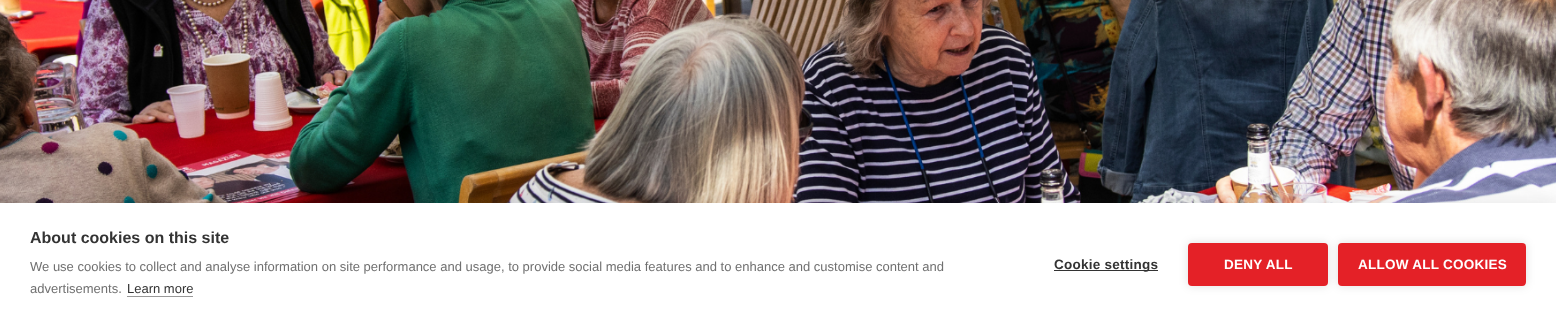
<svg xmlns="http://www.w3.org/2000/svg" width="1556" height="325">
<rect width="100%" height="100%" fill="#fff"/>
<image x="0" y="0" width="1556" height="203" href="media/1.png"/>
<rect y="203" width="1556" height="122" fill="#0000001a" filter="blur(10px)"/>
<rect y="203" width="1556" height="122" fill="#fff"/>
<text x="30" y="243" style="font-family:Liberation Sans;font-size:16px;font-weight:bold;fill:#333">About cookies on this site</text>
<text x="30" y="271" style="font-family:Liberation Sans;font-size:13px;fill:#707070">We use cookies to collect and analyse information on site performance and usage, to provide social media features and to enhance and customise content and</text>
<text x="30" y="293" style="font-family:Liberation Sans;font-size:13px;fill:#707070">advertisements.</text>
<text x="127" y="293" style="font-family:Liberation Sans;font-size:13px;fill:#333">Learn more</text>
<rect x="127" y="296" width="66" height="1" fill="#999"/>
<rect x="1054" y="270" width="104" height="1" fill="#333"/>
<text x="1054" y="269" style="font-family:Liberation Sans;font-size:13.5px;font-weight:bold;letter-spacing:0.25px;fill:#333">Cookie settings</text>
<rect x="1188" y="243" width="140" height="43" rx="4" fill="#0000001f" filter="blur(5px)"/>
<rect x="1188" y="243" width="140" height="43" rx="4" fill="#e42127"/>
<text x="1224" y="269" style="font-family:Liberation Sans;font-size:13.5px;font-weight:bold;letter-spacing:0.25px;fill:#fff">DENY ALL</text>
<rect x="1338" y="243" width="188" height="43" rx="4" fill="#0000001f" filter="blur(5px)"/>
<rect x="1338" y="243" width="188" height="43" rx="4" fill="#e42127"/>
<text x="1358" y="269" style="font-family:Liberation Sans;font-size:13.5px;font-weight:bold;letter-spacing:0.25px;fill:#fff">ALLOW ALL COOKIES</text>
</svg>
